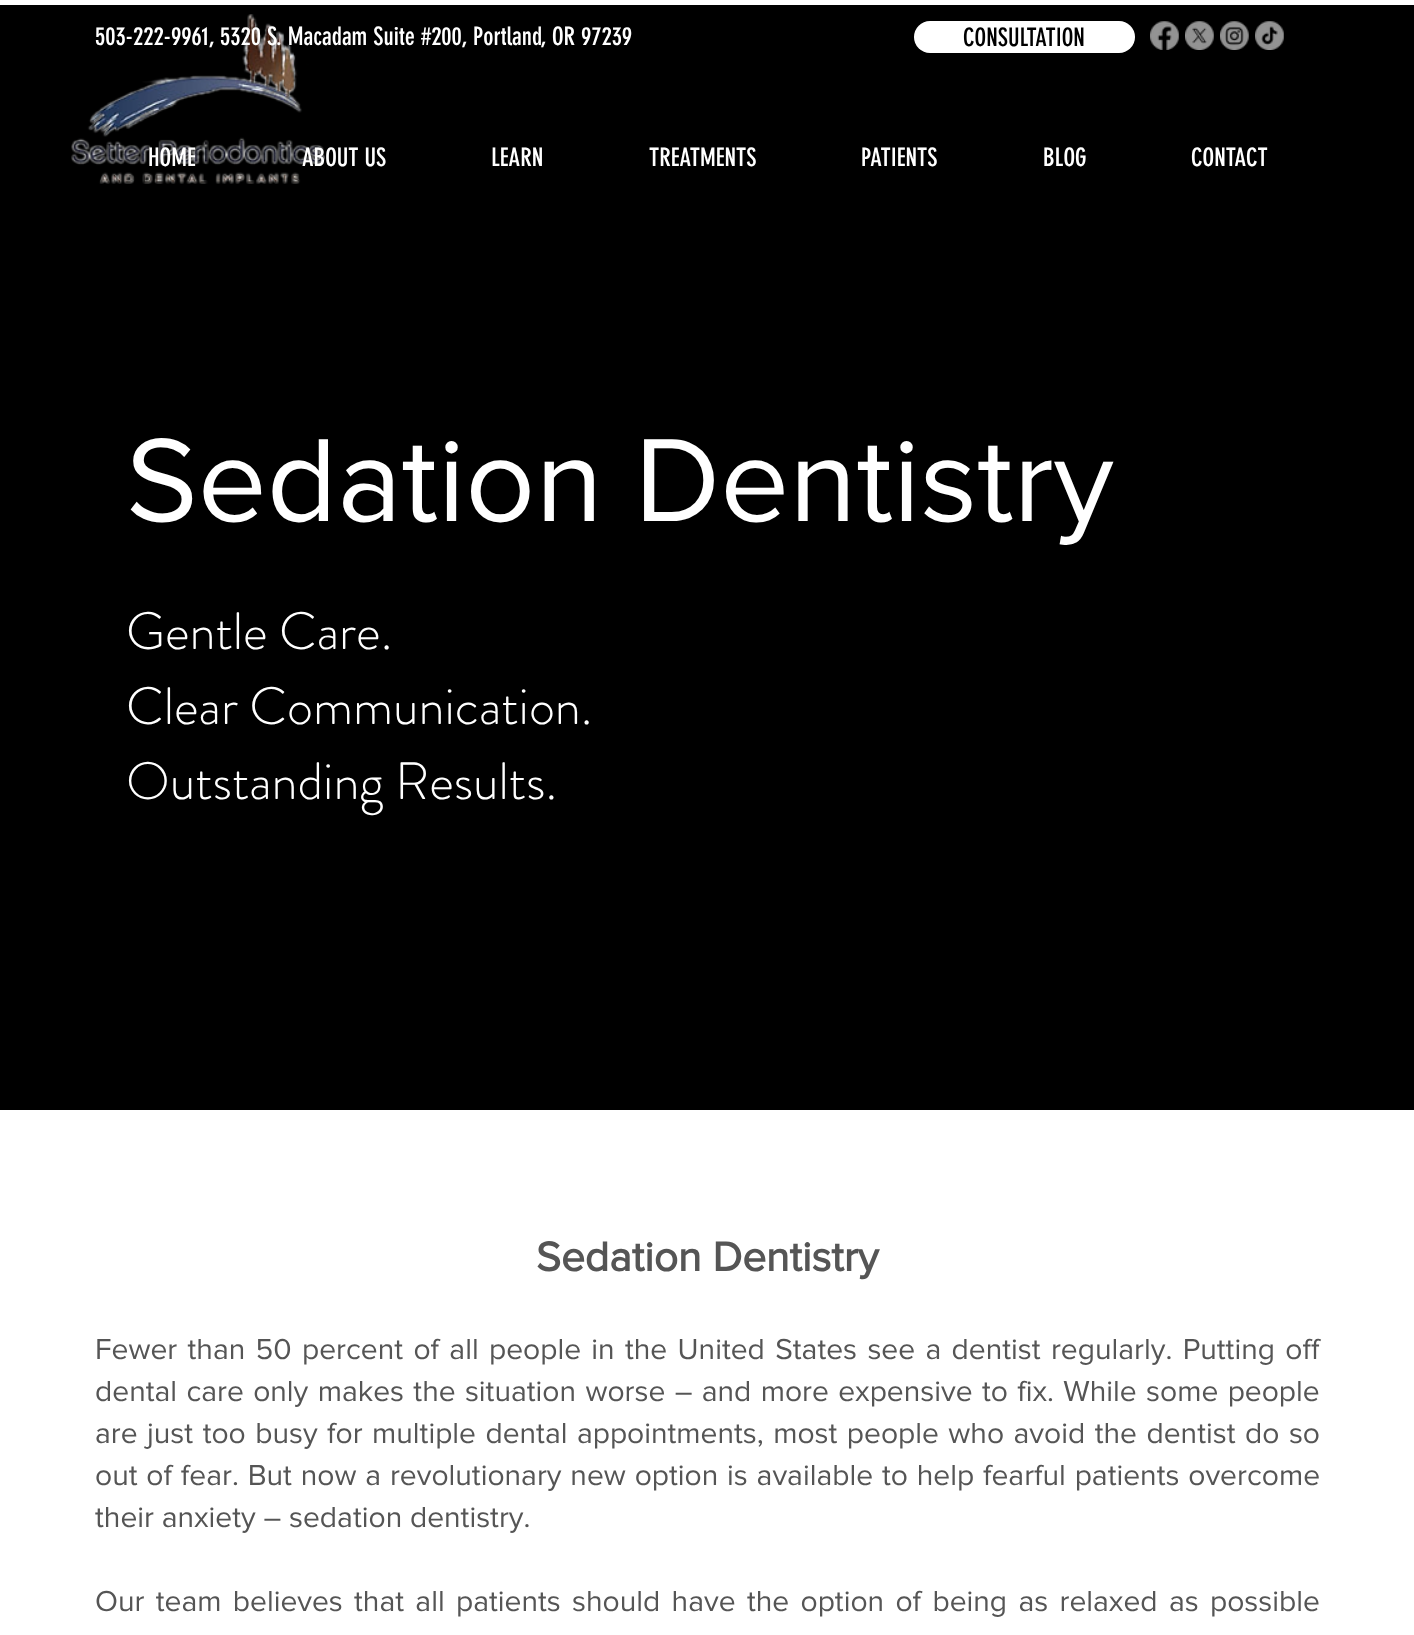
<svg xmlns="http://www.w3.org/2000/svg" width="1414" height="1635">
<rect width="100%" height="100%" fill="#fff"/>
<rect y="5" width="1414" height="1105" fill="#000"/>
<image x="71" y="14" width="254" height="170" href="media/1.png"/>
<text x="95" y="45" style="font-family:'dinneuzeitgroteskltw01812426';font-size:25px;fill:#fff">503-222-9961, 5320 S. Macadam Suite #200,</text>
<text x="473" y="45" style="font-family:'dinneuzeitgroteskltw01812426';font-size:25px;fill:#fff">Portland, OR 97239</text>
<rect x="914" y="21" width="221" height="32" rx="16" fill="#fff"/>
<text x="963" y="46" style="font-family:'dinneuzeitgroteskltw01812426';font-size:25px;fill:#000">CONSULTATION</text>
<image x="1150" y="21" width="29" height="29" href="media/2.png"/>
<image x="1185" y="21" width="29" height="29" href="media/3.png"/>
<image x="1220" y="21" width="29" height="29" href="media/4.png"/>
<image x="1255" y="21" width="29" height="29" href="media/5.png"/>
<text x="148" y="166" style="font-family:'dinneuzeitgroteskltw01812426';font-size:25px;fill:#fff">HOME</text>
<text x="302" y="166" style="font-family:'dinneuzeitgroteskltw01812426';font-size:25px;fill:#fff">ABOUT US</text>
<text x="491" y="166" style="font-family:'dinneuzeitgroteskltw01812426';font-size:25px;fill:#fff">LEARN</text>
<text x="649" y="166" style="font-family:'dinneuzeitgroteskltw01812426';font-size:25px;fill:#fff">TREATMENTS</text>
<text x="861" y="166" style="font-family:'dinneuzeitgroteskltw01812426';font-size:25px;fill:#fff">PATIENTS</text>
<text x="1043" y="166" style="font-family:'dinneuzeitgroteskltw01812426';font-size:25px;fill:#fff">BLOG</text>
<text x="1191" y="166" style="font-family:'dinneuzeitgroteskltw01812426';font-size:25px;fill:#fff">CONTACT</text>
<text x="126" y="521" style="font-family:'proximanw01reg';font-size:122.5px;fill:#fff">Sedation Dentistry</text>
<text x="126" y="649" style="font-family:'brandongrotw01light';font-size:52.5px;font-weight:300;fill:#fff">Gentle Care.</text>
<text x="126" y="724" style="font-family:'brandongrotw01light';font-size:52.5px;font-weight:300;fill:#fff">Clear Communication.</text>
<text x="126" y="799" style="font-family:'brandongrotw01light';font-size:52.5px;font-weight:300;fill:#fff">Outstanding Results.</text>
<text x="536" y="1271" style="font-family:'proximanw01reg';font-size:42.5px;font-weight:bold;fill:#555">Sedation Dentistry</text>
<text x="95" y="1359" word-spacing="2.6" style="font-family:'proximanw01reg';font-size:30px;fill:#555">Fewer than 50 percent of all people in the United States see a dentist regularly. Putting off</text>
<text x="95" y="1401" word-spacing="1.6" style="font-family:'proximanw01reg';font-size:30px;fill:#555">dental care only makes the situation worse – and more expensive to fix. While some people</text>
<text x="95" y="1443" word-spacing="1.75" style="font-family:'proximanw01reg';font-size:30px;fill:#555">are just too busy</text>
<text x="327" y="1443" word-spacing="1.75" style="font-family:'proximanw01reg';font-size:30px;fill:#555">for multiple dental appointments, most people who avoid the dentist do so</text>
<text x="95" y="1485" word-spacing="1.1" style="font-family:'proximanw01reg';font-size:30px;fill:#555">out of fear. But now a revolutionary new option is available to help fearful patients overcome</text>
<text x="95" y="1527" style="font-family:'proximanw01reg';font-size:30px;fill:#555">their anxiety – sedation dentistry.</text>
<text x="95" y="1611" word-spacing="3.6" style="font-family:'proximanw01reg';font-size:30px;fill:#555">Our team b</text>
<text x="250" y="1611" style="font-family:'proximanw01reg';font-size:30px;fill:#555">elieves</text>
<text x="354" y="1611" word-spacing="3.6" style="font-family:'proximanw01reg';font-size:30px;fill:#555">that all patients should have the option of being as relaxed as possible</text>
</svg>
